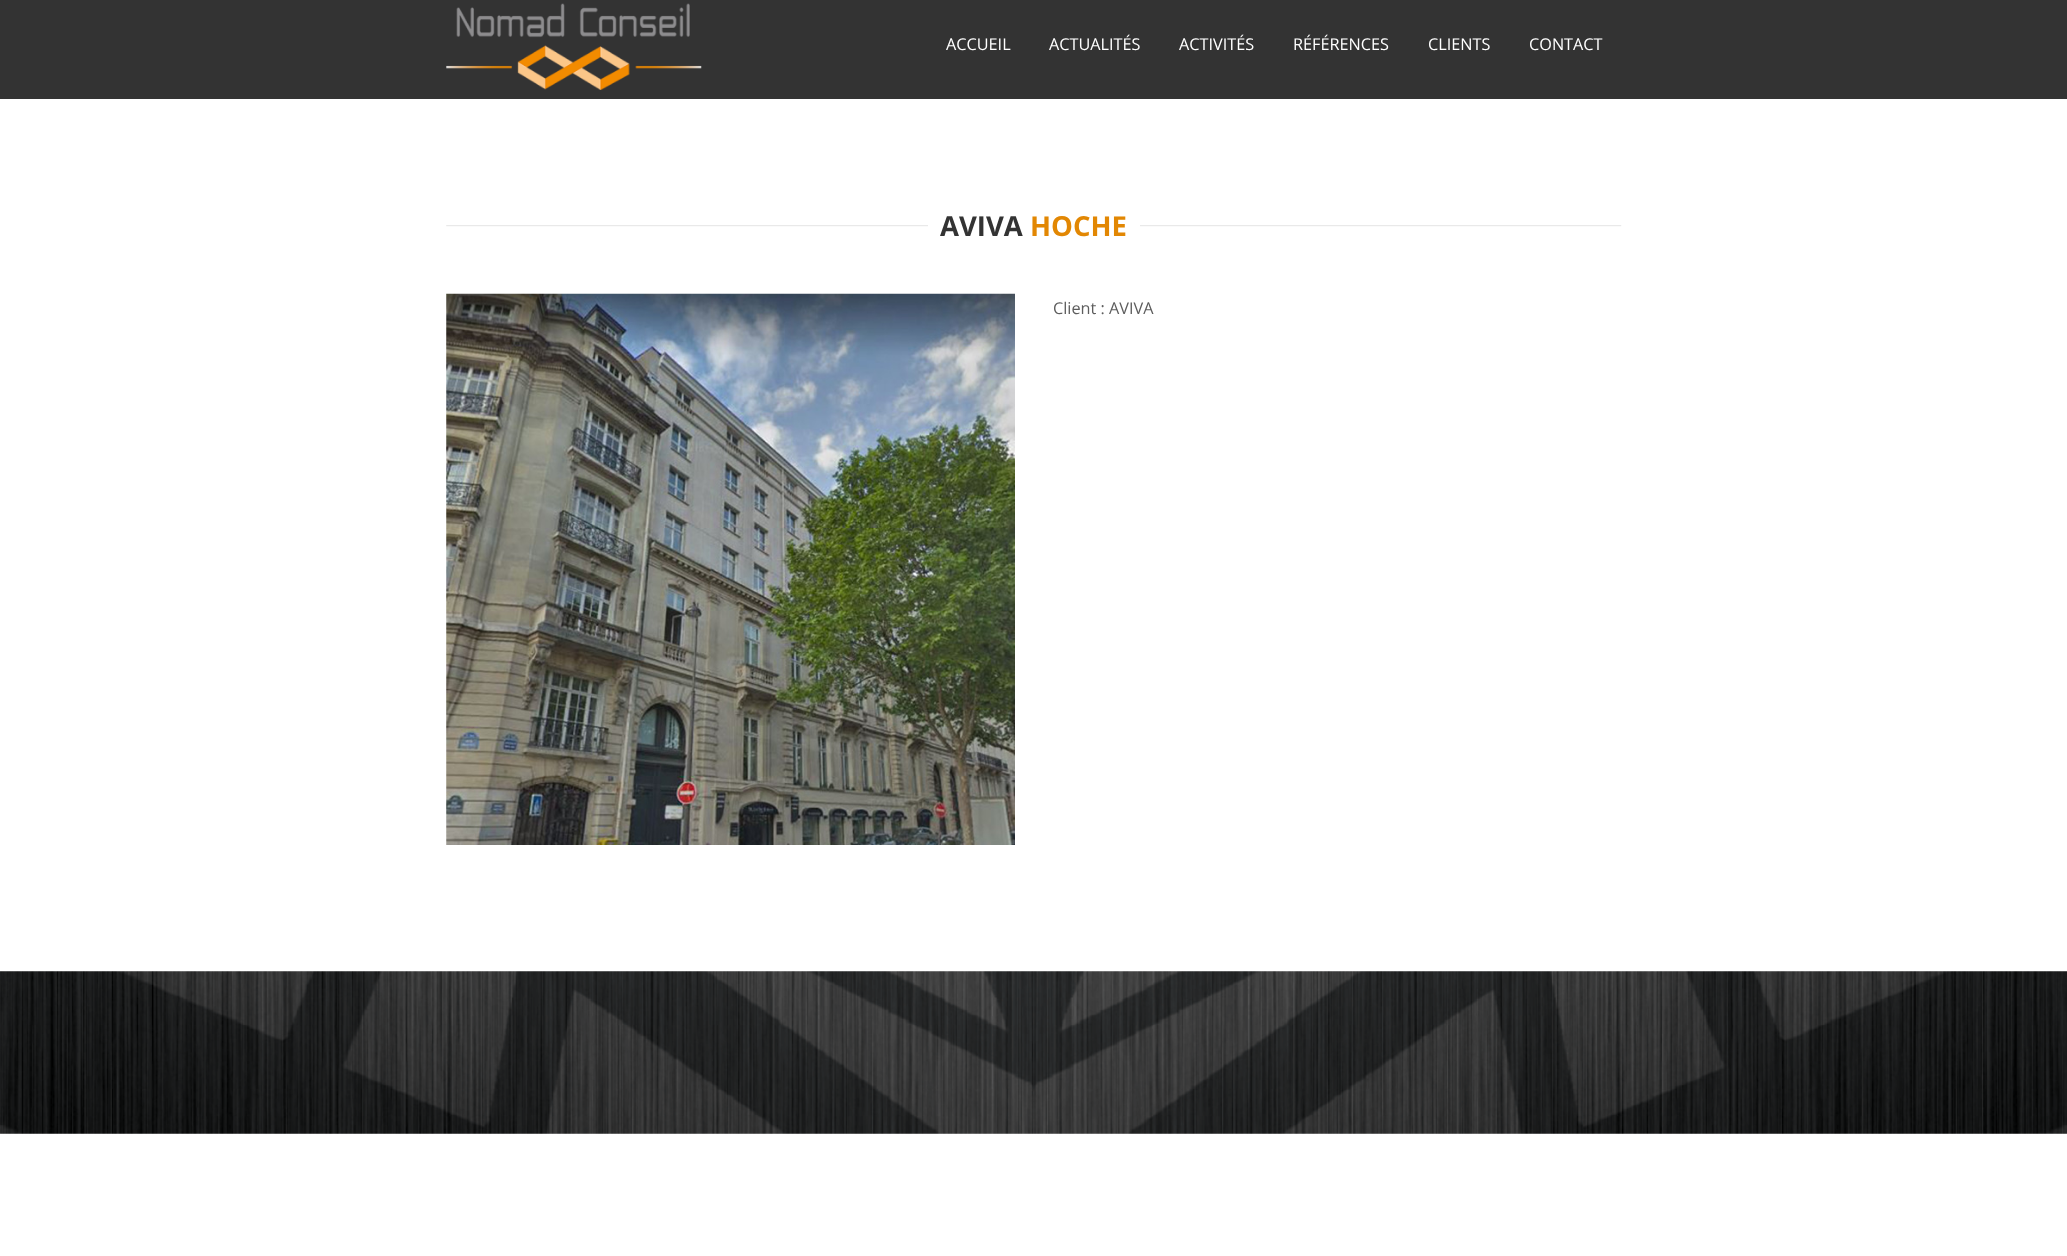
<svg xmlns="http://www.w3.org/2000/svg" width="2067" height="1256">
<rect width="100%" height="100%" fill="#fff"/>
<rect width="2067" height="99" fill="#333"/>
<image x="446" y="3" width="256" height="87" href="media/1.png"/>
<text x="946" y="50" style="font-family:Open Sans;font-size:16.25px;fill:#fff">ACCUEIL</text>
<text x="1049" y="50" style="font-family:Open Sans;font-size:16.25px;fill:#fff">ACTUALITÉS</text>
<text x="1179" y="50" style="font-family:Open Sans;font-size:16.25px;fill:#fff">ACTIVITÉS</text>
<text x="1293" y="50" style="font-family:Open Sans;font-size:16.25px;fill:#fff">RÉFÉRENCES</text>
<text x="1428" y="50" style="font-family:Open Sans;font-size:16.25px;fill:#fff">CLIENTS</text>
<text x="1529" y="50" style="font-family:Open Sans;font-size:16.25px;fill:#fff">CONTACT</text>
<image x="446" y="225" width="1176" height="2" href="media/2.png"/>
<rect x="928" y="225" width="212" height="2" fill="#fff"/>
<text x="940" y="236" style="font-family:Open Sans;font-size:27.5px;font-weight:bold;fill:#333">AVIVA</text>
<text x="1030" y="236" style="font-family:Open Sans;font-size:27.5px;font-weight:bold;fill:#e28703">HOCHE</text>
<image x="446" y="293" width="569" height="552" href="media/3.png"/>
<text x="1053" y="314" style="font-family:Open Sans;font-size:16.25px;fill:#5d5d5d">Client : AVIVA</text>
<image x="0" y="971" width="2067" height="163" href="media/4.png"/>
</svg>
